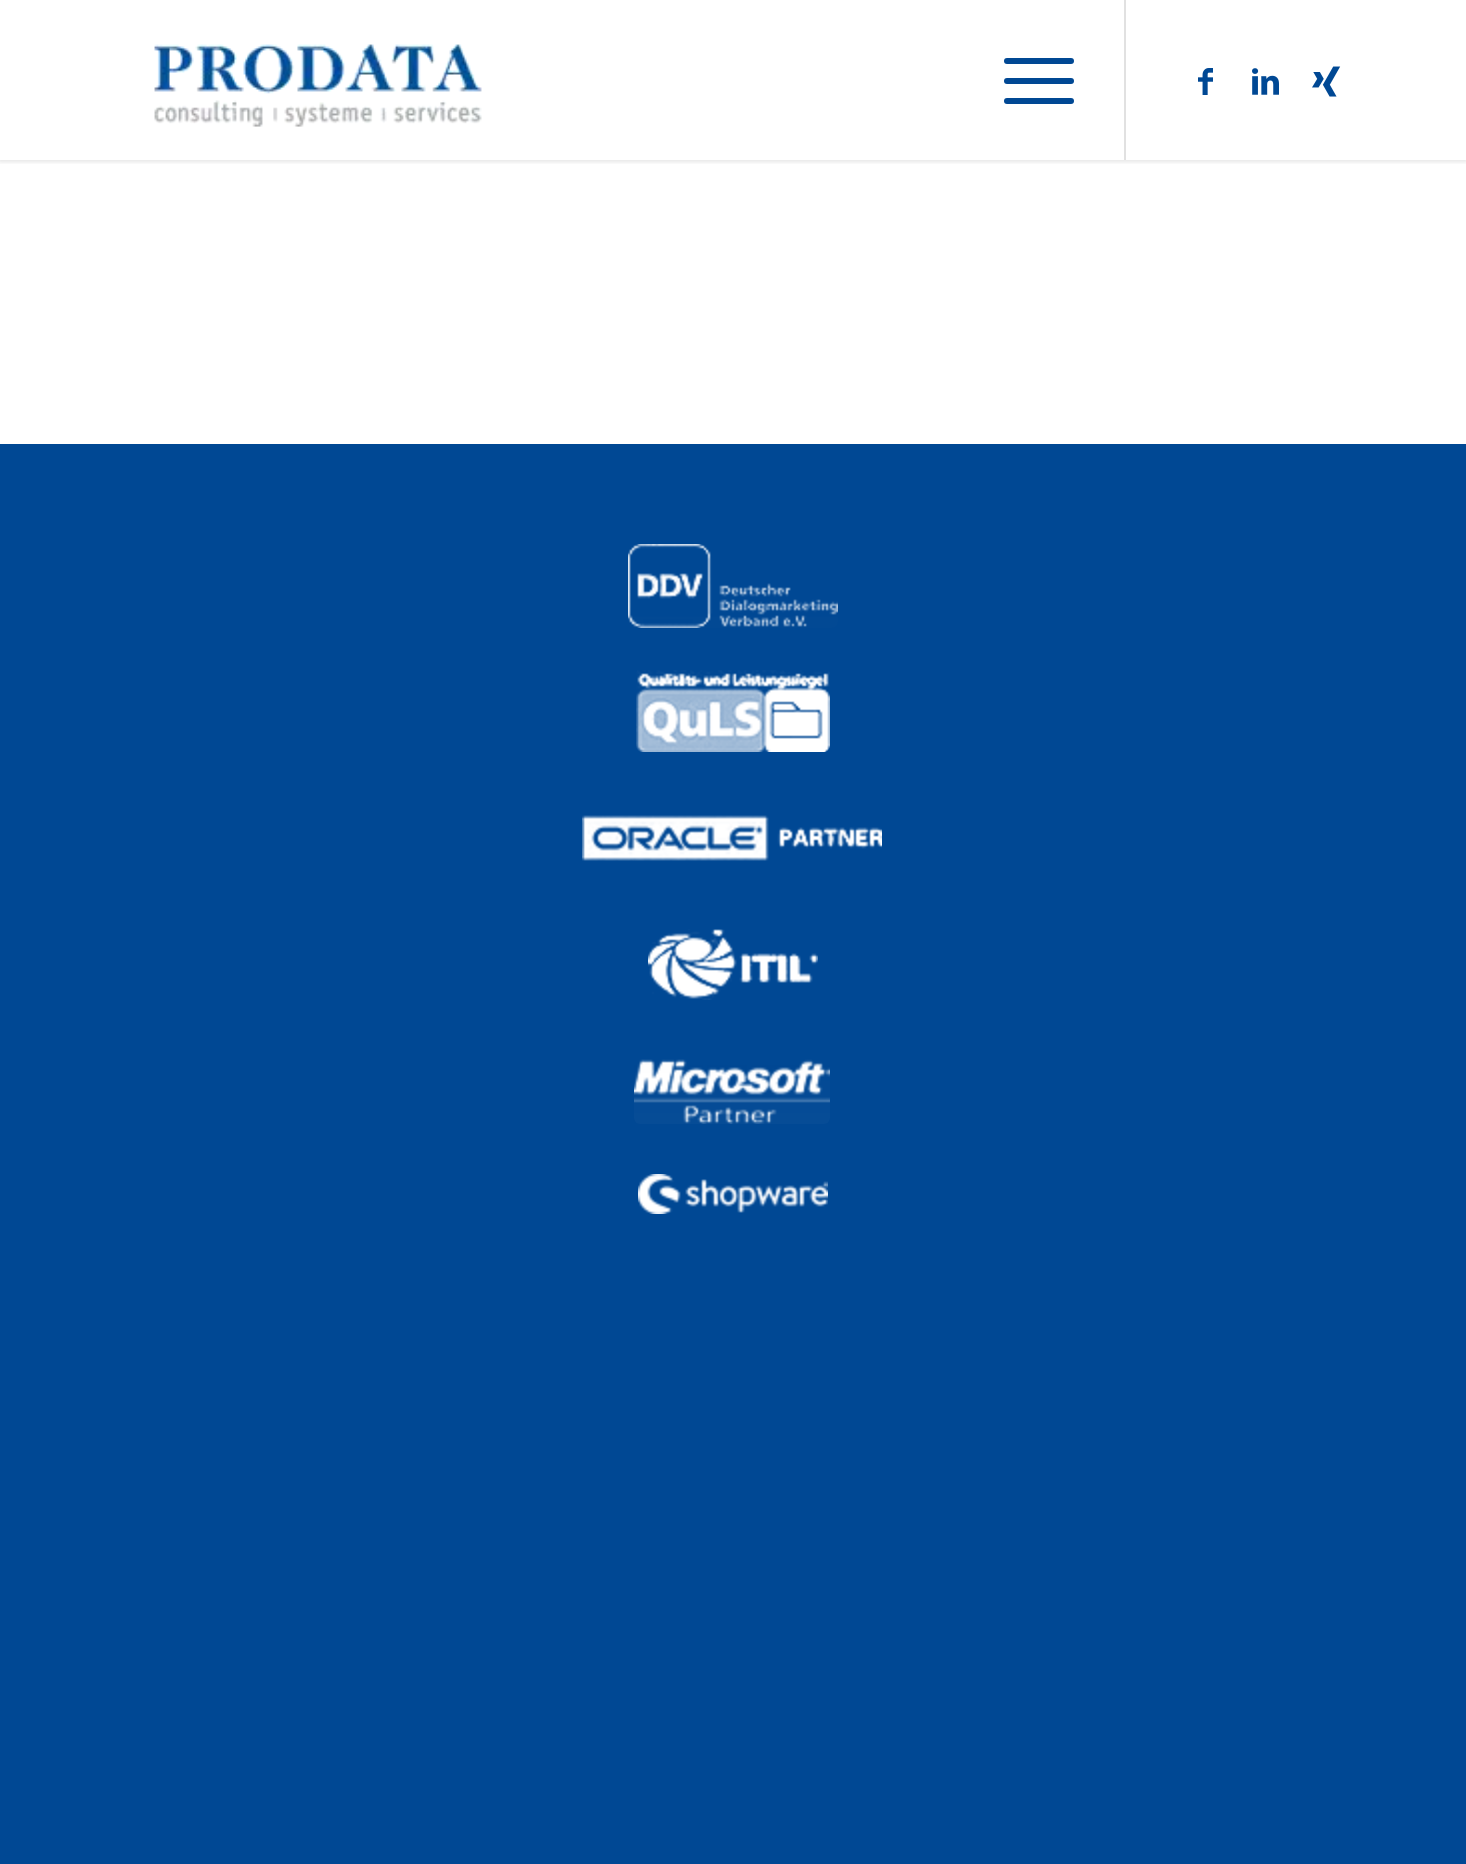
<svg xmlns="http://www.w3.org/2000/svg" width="1466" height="1864">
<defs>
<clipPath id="clip1"><rect x="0" y="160" width="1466" height="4"/></clipPath>
</defs>
<rect width="100%" height="100%" fill="#004894"/>
<rect width="1466" height="444" fill="#fff"/>
<g clip-path="url(#clip1)">
<rect x="-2" y="-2" width="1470" height="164" fill="#0000001a" filter="blur(2px)"/>
</g>
<image x="154" y="44" width="328" height="83" href="media/1.png"/>
<rect x="1124" width="2" height="160" fill="#e1e1e1"/>
<rect x="1004" y="78" width="70" height="6" rx="3" fill="#004894"/>
<rect x="1004" y="58" width="70" height="6" rx="3" fill="#004894"/>
<rect x="1004" y="98" width="70" height="6" rx="3" fill="#004894"/>
<image x="1198" y="68" width="15" height="27" href="media/2.png"/>
<image x="1252" y="68" width="27" height="27" href="media/3.png"/>
<image x="1312" y="66" width="29" height="31" href="media/4.png"/>
<image x="628" y="544" width="210" height="84" href="media/5.png"/>
<image x="636" y="670" width="194" height="82" href="media/6.png"/>
<image x="582" y="815" width="300" height="46" href="media/7.png"/>
<image x="648" y="929" width="170" height="71" href="media/8.png"/>
<image x="634" y="1059" width="196" height="65" href="media/9.png"/>
<image x="638" y="1174" width="190" height="40" href="media/10.png"/>
</svg>
